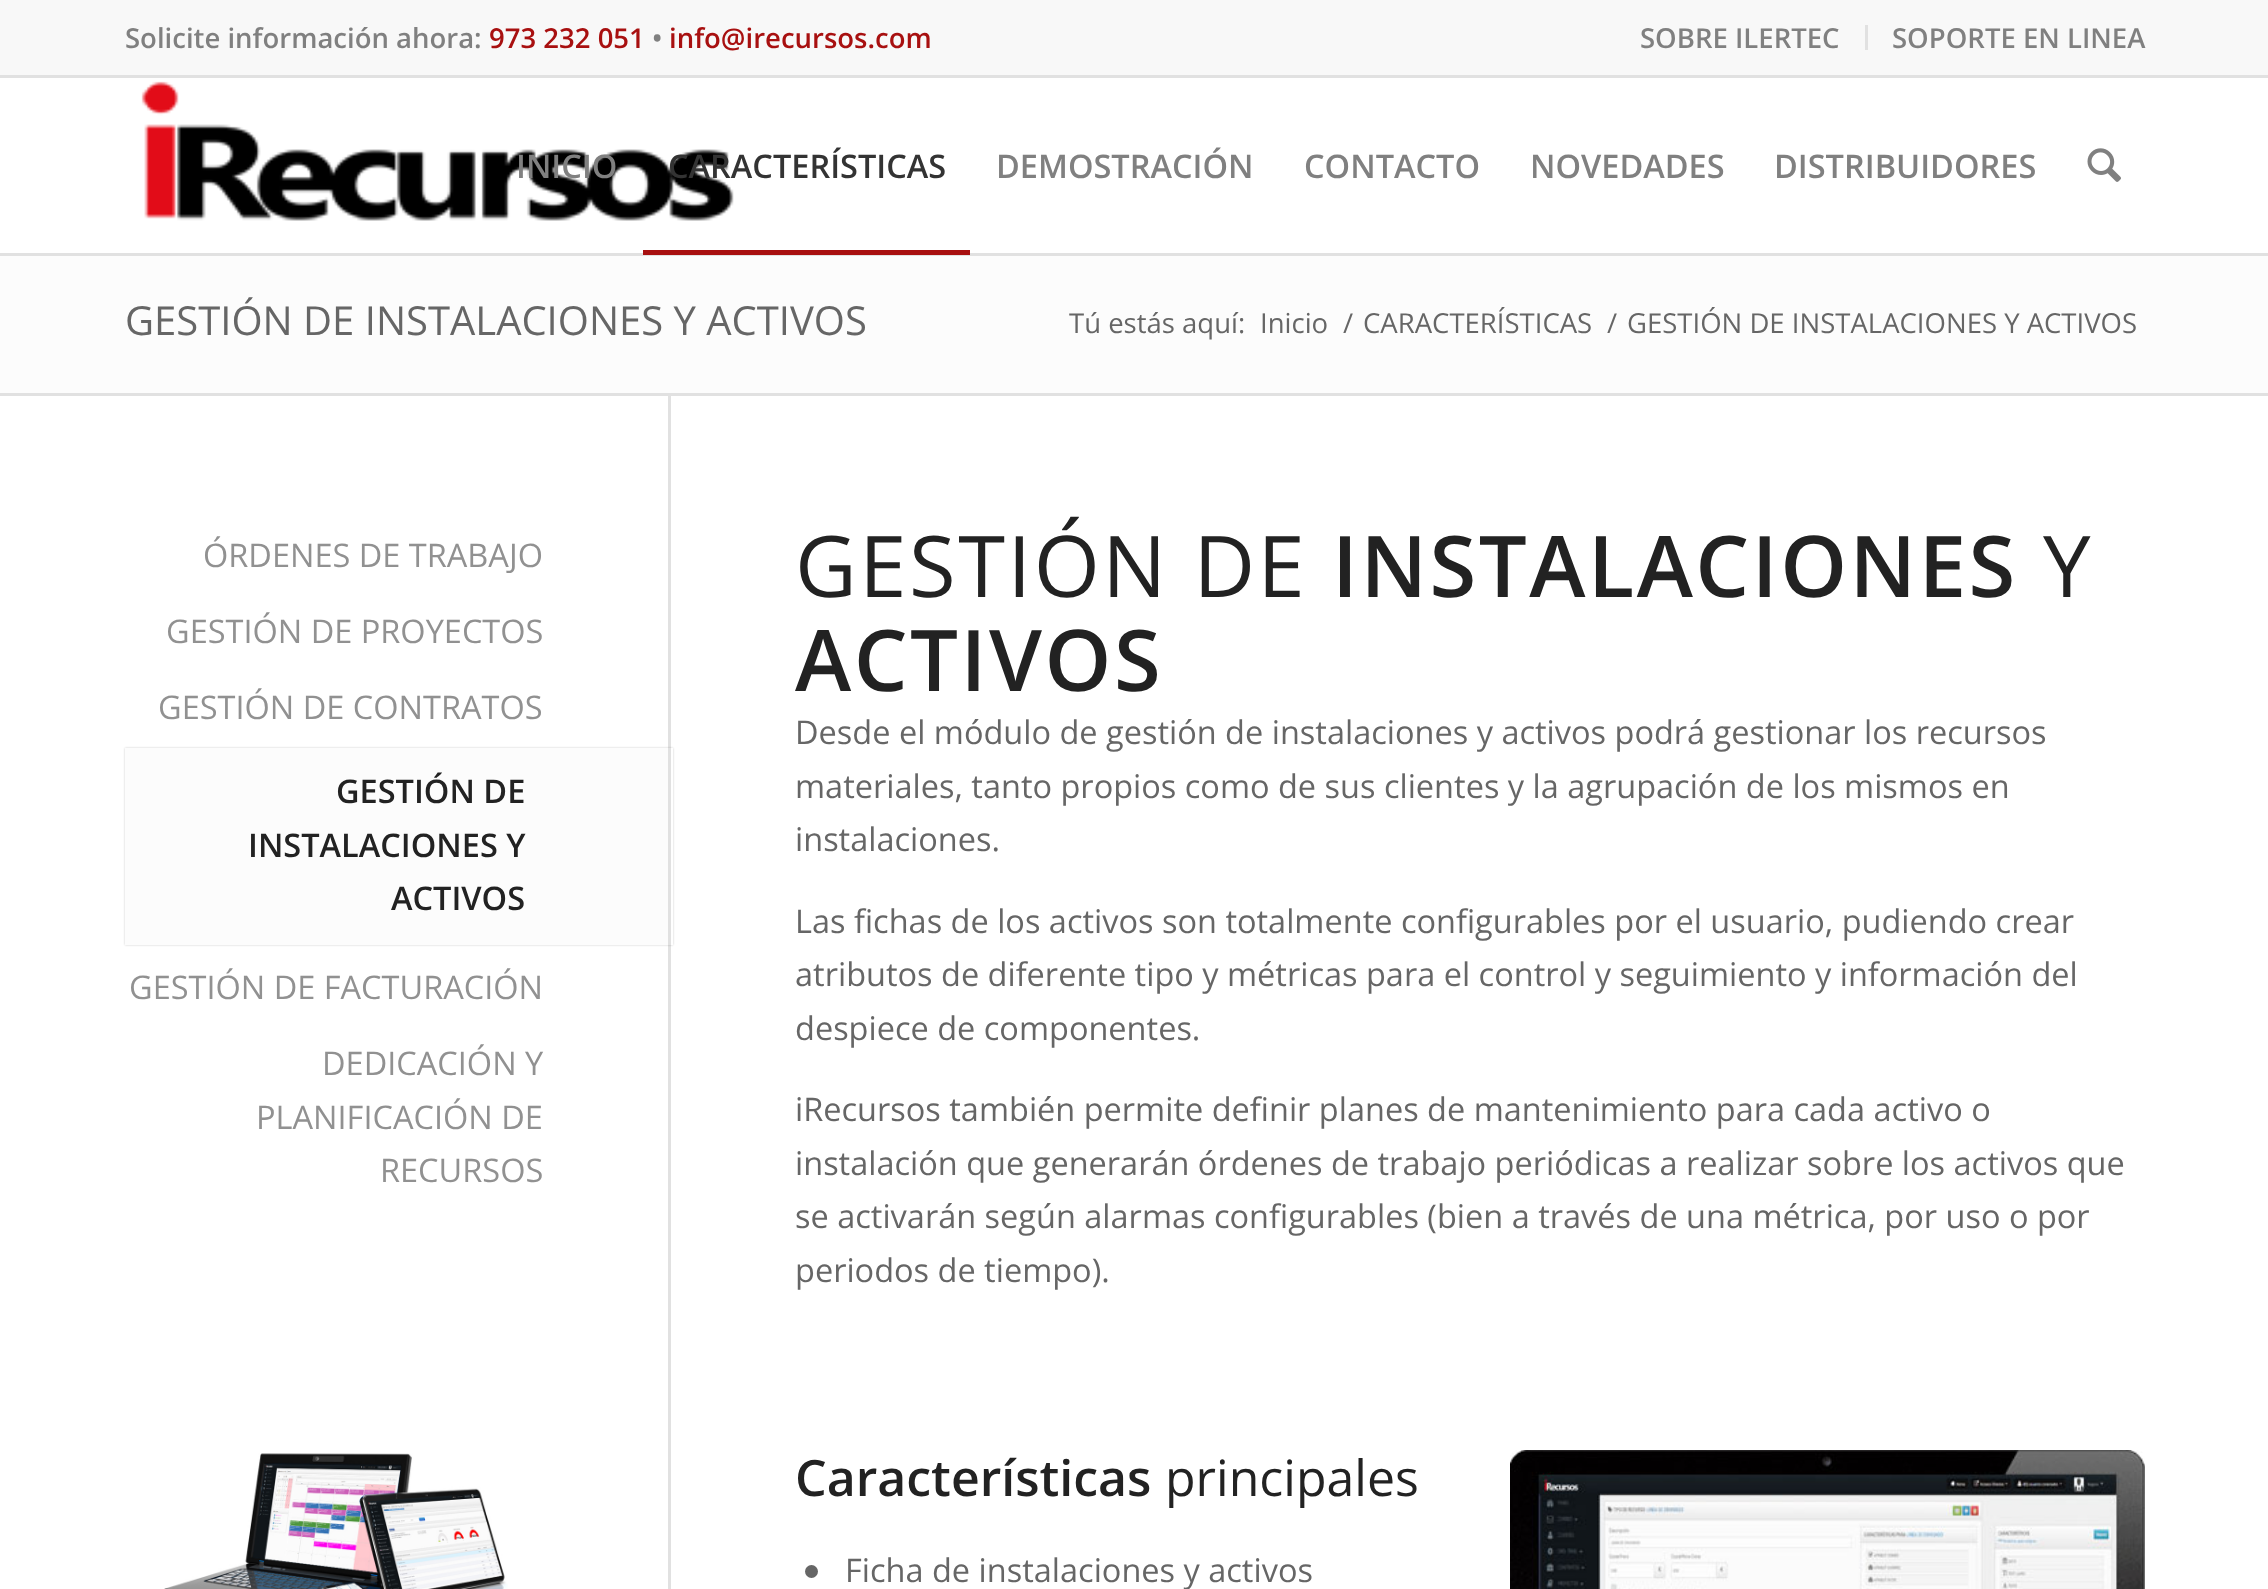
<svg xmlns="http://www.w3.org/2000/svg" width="2268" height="1589">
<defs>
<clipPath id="clip1"><path d="M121 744h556v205h-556zm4 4h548v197h-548z" clip-rule="evenodd"/></clipPath>
</defs>
<rect width="100%" height="100%" fill="#fff"/>
<rect width="2268" height="75" fill="#f8f8f8"/>
<rect y="75" width="2268" height="3" fill="#e1e1e1"/>
<text x="125" y="48" style="font-family:Open Sans;font-size:27.5px;font-weight:600;fill:#808080">Solicite información ahora:</text>
<text x="489" y="48" style="font-family:Open Sans;font-size:27.5px;font-weight:600;fill:#a81010">973 232 051</text>
<text x="652" y="48" style="font-family:Open Sans;font-size:27.5px;font-weight:600;fill:#808080">•</text>
<text x="669" y="48" style="font-family:Open Sans;font-size:27.5px;font-weight:600;fill:#a81010">info@irecursos.com</text>
<rect x="1865" y="25" width="3" height="25" fill="#e1e1e1"/>
<text x="1640" y="48" style="font-family:Open Sans;font-size:27.5px;font-weight:600;fill:#808080">SOBRE ILERTEC</text>
<text x="1892" y="48" style="font-family:Open Sans;font-size:27.5px;font-weight:600;fill:#808080">SOPORTE EN LINEA</text>
<rect y="253" width="2268" height="3" fill="#e1e1e1"/>
<image x="141" y="81" width="593" height="140" href="media/1.png"/>
<text x="516" y="178" style="font-family:Open Sans;font-size:32.5px;font-weight:600;fill:#808080">INICIO</text>
<text x="668" y="178" style="font-family:Open Sans;font-size:32.5px;font-weight:600;fill:#333">CARACTERÍSTICAS</text>
<rect x="643" y="250" width="327" height="5" fill="#a81010"/>
<text x="996" y="178" style="font-family:Open Sans;font-size:32.5px;font-weight:600;fill:#808080">DEMOSTRACIÓN</text>
<text x="1304" y="178" style="font-family:Open Sans;font-size:32.5px;font-weight:600;fill:#808080">CONTACTO</text>
<text x="1530" y="178" style="font-family:Open Sans;font-size:32.5px;font-weight:600;fill:#808080">NOVEDADES</text>
<text x="1774" y="178" style="font-family:Open Sans;font-size:32.5px;font-weight:600;fill:#808080">DISTRIBUIDORES</text>
<image x="2087" y="148" width="34" height="34" href="media/2.png"/>
<rect y="256" width="2268" height="137" fill="#fcfcfc"/>
<text x="125" y="335" style="font-family:Open Sans;font-size:40px;fill:#666">GESTIÓN DE INSTALACIONES Y ACTIVOS</text>
<text x="1069" y="333" style="font-family:Open Sans;font-size:27.5px;fill:#666">Tú estás aquí:</text>
<text x="1260" y="333" style="font-family:Open Sans;font-size:27.5px;fill:#666">Inicio</text>
<text x="1343" y="333" style="font-family:Open Sans;font-size:27.5px;fill:#666">/</text>
<text x="1363" y="333" style="font-family:Open Sans;font-size:27.5px;fill:#666">CARACTERÍSTICAS</text>
<text x="1607" y="333" style="font-family:Open Sans;font-size:27.5px;fill:#666">/</text>
<text x="1627" y="333" style="font-family:Open Sans;font-size:27.5px;fill:#666">GESTIÓN DE INSTALACIONES Y ACTIVOS</text>
<rect y="393" width="2268" height="3" fill="#e1e1e1"/>
<text x="203" y="567" style="font-family:Open Sans;font-size:32.5px;fill:#919191">ÓRDENES DE TRABAJO</text>
<text x="166" y="643" style="font-family:Open Sans;font-size:32.5px;fill:#919191">GESTIÓN DE PROYECTOS</text>
<text x="158" y="719" style="font-family:Open Sans;font-size:32.5px;fill:#919191">GESTIÓN DE CONTRATOS</text>
<rect x="668" y="395" width="3" height="1194" fill="#e1e1e1"/>
<g clip-path="url(#clip1)">
<rect x="125" y="748" width="548" height="197" fill="#00000033" filter="blur(1px)"/>
</g>
<rect x="125" y="748" width="543" height="197" fill="#fcfcfc"/>
<text x="336" y="803" style="font-family:Open Sans;font-size:32.5px;font-weight:600;fill:#222">GESTIÓN DE</text>
<text x="248" y="857" style="font-family:Open Sans;font-size:32.5px;font-weight:600;fill:#222">INSTALACIONES Y</text>
<text x="391" y="910" style="font-family:Open Sans;font-size:32.5px;font-weight:600;fill:#222">ACTIVOS</text>
<text x="129" y="999" style="font-family:Open Sans;font-size:32.5px;fill:#919191">GESTIÓN DE FACTURACIÓN</text>
<text x="322" y="1075" style="font-family:Open Sans;font-size:32.5px;fill:#919191">DEDICACIÓN Y</text>
<text x="256" y="1129" style="font-family:Open Sans;font-size:32.5px;fill:#919191">PLANIFICACIÓN DE</text>
<text x="380" y="1182" style="font-family:Open Sans;font-size:32.5px;fill:#919191">RECURSOS</text>
<image x="164" y="1453" width="344" height="136" href="media/3.png"/>
<text x="795" y="597" style="font-family:Open Sans;font-size:85px;letter-spacing:2.5px;fill:#222">GESTIÓN DE</text>
<text x="1332" y="597" style="font-family:Open Sans;font-size:85px;font-weight:600;letter-spacing:2.5px;fill:#222">INSTALACIONES</text>
<text x="2043" y="597" style="font-family:Open Sans;font-size:85px;letter-spacing:2.5px;fill:#222">Y</text>
<text x="795" y="691" style="font-family:Open Sans;font-size:85px;font-weight:600;letter-spacing:2.5px;fill:#222">ACTIVOS</text>
<text x="795" y="744" style="font-family:Open Sans;font-size:32.5px;fill:#666">Desde el módulo de gestión de instalaciones y activos podrá gestionar los recursos</text>
<text x="795" y="798" style="font-family:Open Sans;font-size:32.5px;fill:#666">materiales, tanto propios como de sus clientes y la agrupación de los mismos en</text>
<text x="795" y="851" style="font-family:Open Sans;font-size:32.5px;fill:#666">instalaciones.</text>
<text x="795" y="933" style="font-family:Open Sans;font-size:32.5px;fill:#666">Las fichas de los activos son totalmente configurables por el usuario, pudiendo crear</text>
<text x="795" y="986" style="font-family:Open Sans;font-size:32.5px;fill:#666">atributos de diferente tipo y métricas para el control y seguimiento y información del</text>
<text x="795" y="1040" style="font-family:Open Sans;font-size:32.5px;fill:#666">despiece de componentes.</text>
<text x="795" y="1121" style="font-family:Open Sans;font-size:32.5px;fill:#666">iRecursos también permite definir planes de mantenimiento para cada activo o</text>
<text x="795" y="1175" style="font-family:Open Sans;font-size:32.5px;fill:#666">instalación que generarán órdenes de trabajo periódicas a realizar sobre los activos que</text>
<text x="795" y="1228" style="font-family:Open Sans;font-size:32.5px;fill:#666">se activarán según alarmas configurables (bien a través de una métrica, por uso o por</text>
<text x="795" y="1282" style="font-family:Open Sans;font-size:32.5px;fill:#666">periodos de tiempo).</text>
<text x="795" y="1496" style="font-family:Open Sans;font-size:50px;font-weight:600;fill:#222">Características</text>
<text x="1165" y="1496" style="font-family:Open Sans;font-size:50px;fill:#222">principales</text>
<circle cx="811.5" cy="1571.5" r="6.5" fill="#666"/>
<text x="845" y="1582" style="font-family:Open Sans;font-size:32.5px;fill:#666">Ficha de instalaciones y activos</text>
<image x="1510" y="1450" width="635" height="139" href="media/4.png"/>
</svg>
